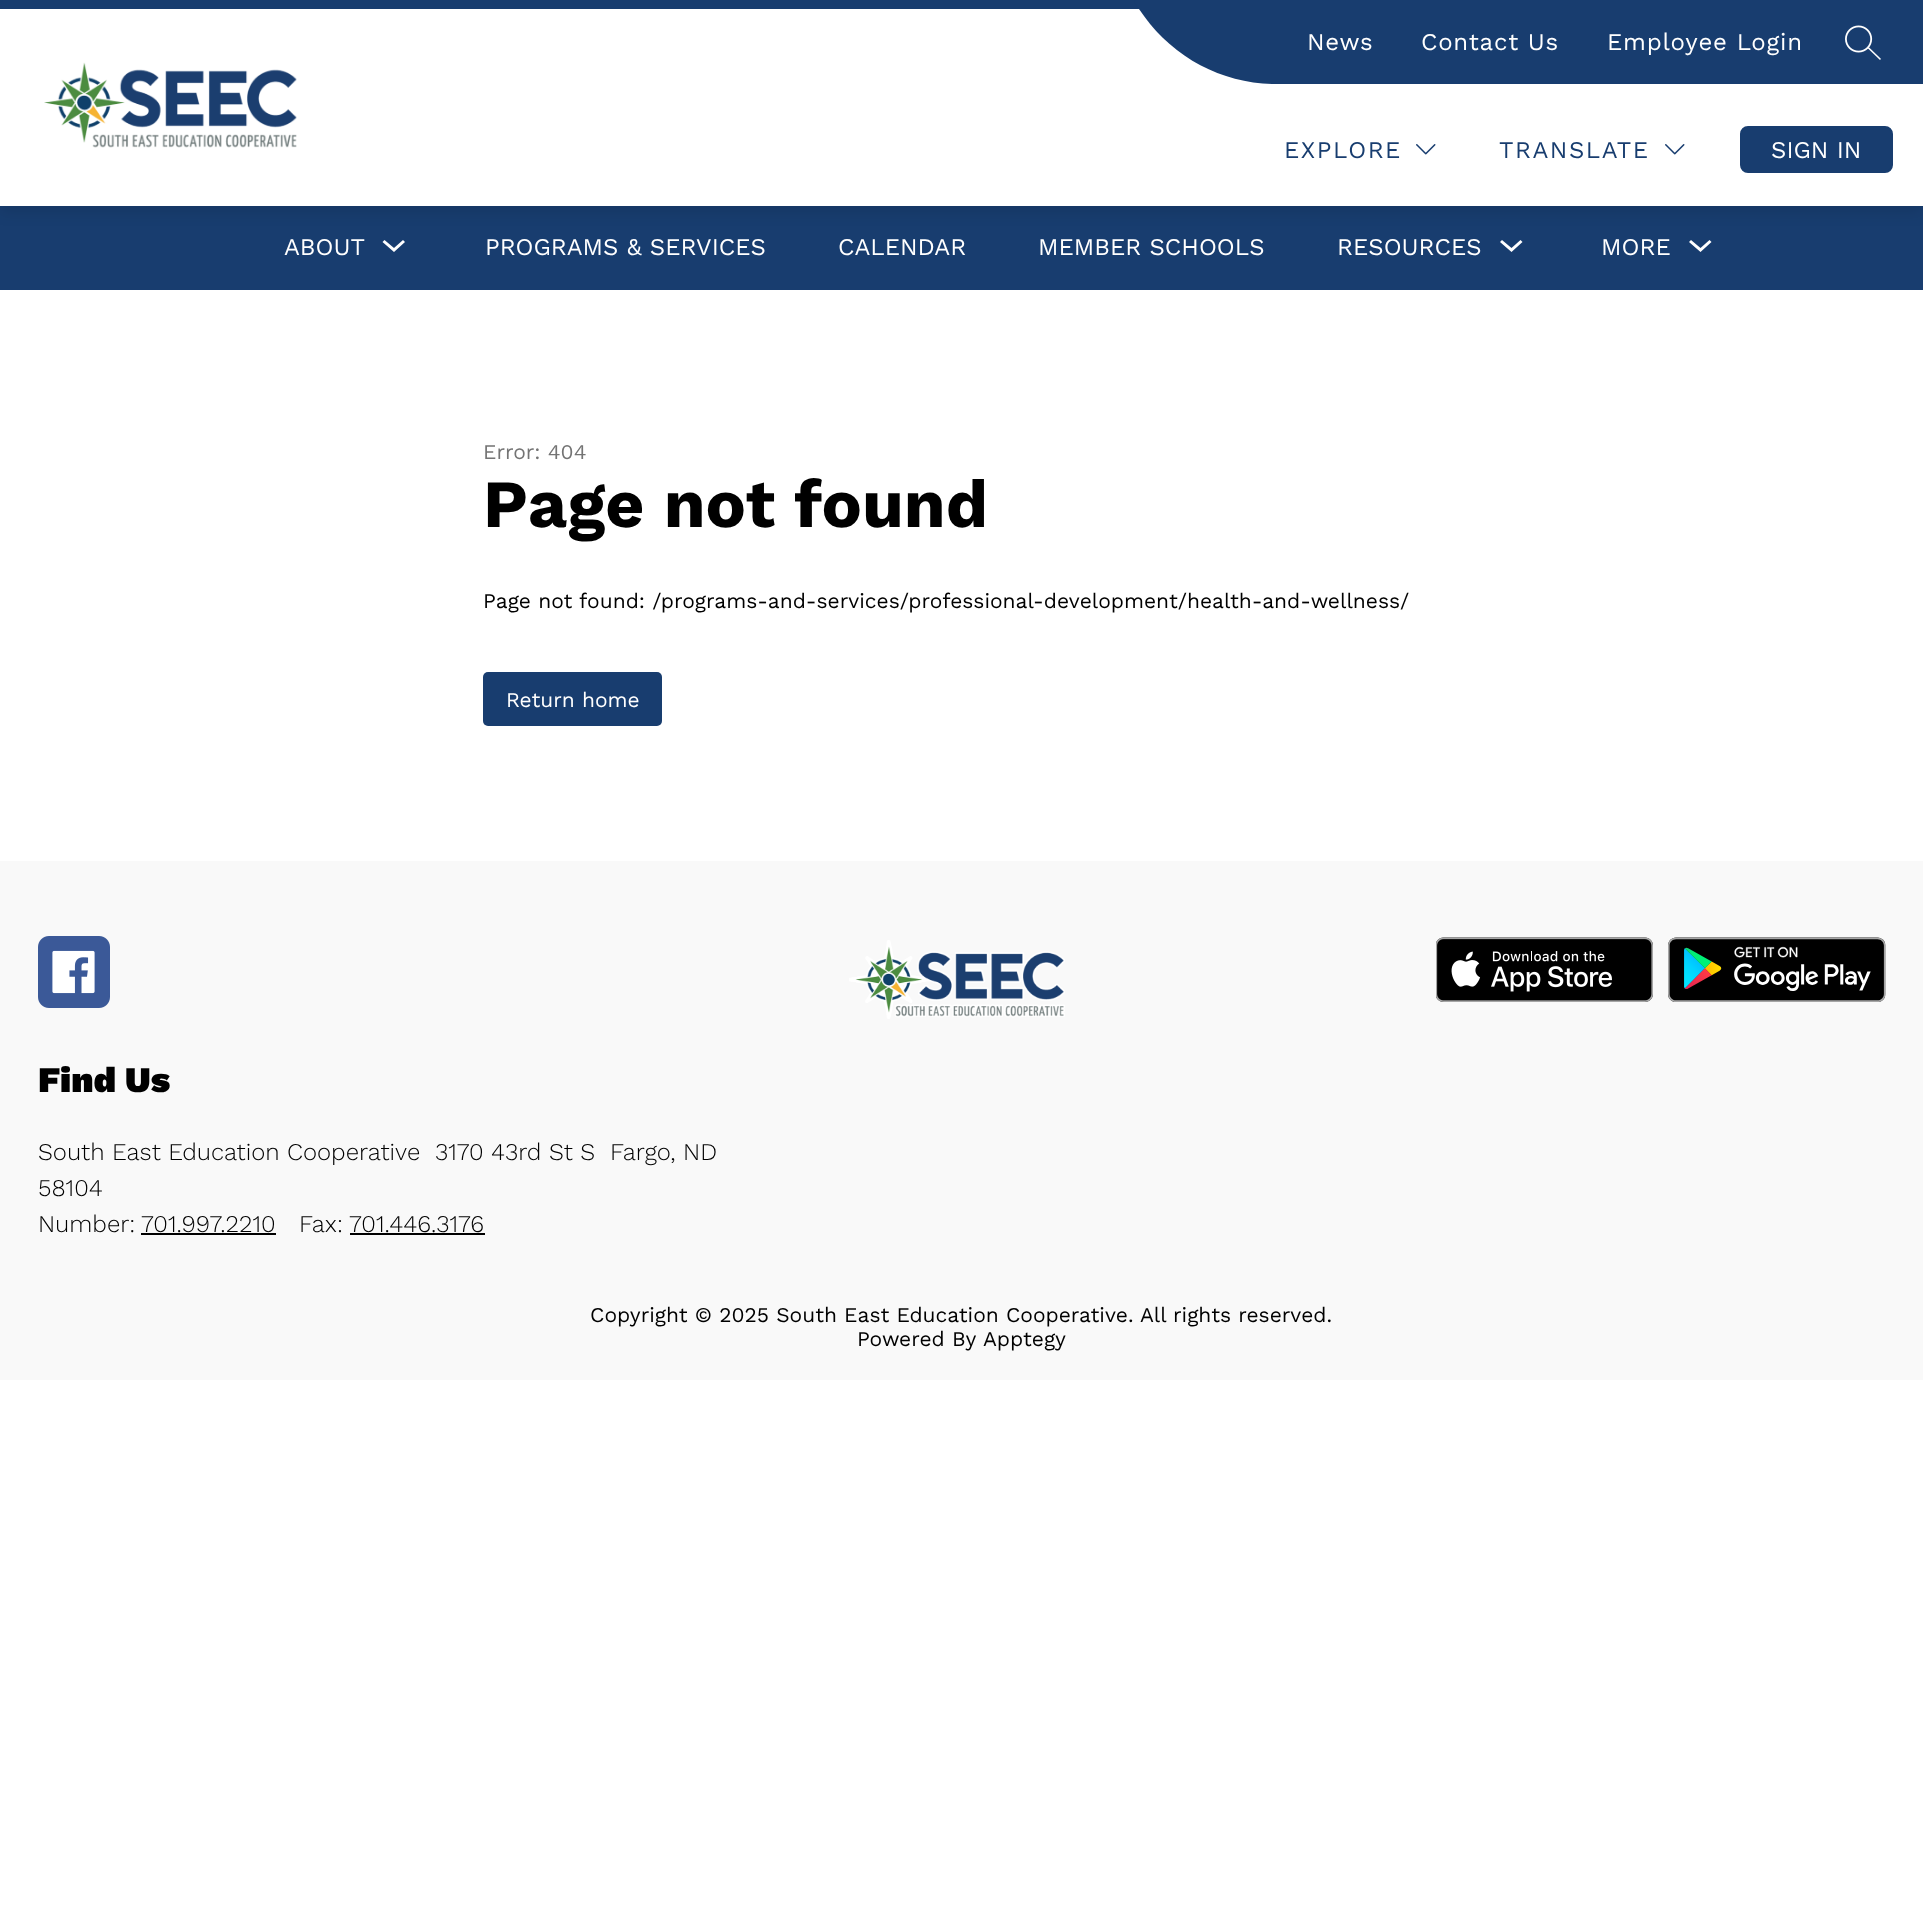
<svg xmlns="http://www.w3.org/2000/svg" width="1923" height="1919">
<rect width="100%" height="100%" fill="#fff"/>
<rect y="206" width="1923" height="84" fill="#183d6f"/>
<rect y="6" width="1923" height="206" fill="#0000001a" filter="blur(7.5px)"/>
<rect y="9" width="1923" height="197" fill="#fff"/>
<rect width="1139" height="9" fill="#183d6f"/>
<image x="44" y="62" width="253" height="86" href="media/1.png"/>
<rect x="1280" width="643" height="84" fill="#183d6f"/>
<path d="M1276 84h4v-84h-144c-2 0-2 1-2 2l10 14c31 43 80 68 132 68z" fill="#183d6f"/>
<text x="1307" y="50" style="font-family:Work Sans;font-size:24px;letter-spacing:0.75px;fill:#fff">News</text>
<text x="1421" y="50" style="font-family:Work Sans;font-size:24px;letter-spacing:0.75px;fill:#fff">Contact Us</text>
<text x="1607" y="50" style="font-family:Work Sans;font-size:24px;letter-spacing:0.75px;fill:#fff">Employee Login</text>
<image x="1845" y="25" width="36" height="35" href="media/2.png"/>
<text x="1284" y="158" style="font-family:Work Sans;font-size:24px;letter-spacing:1.5px;fill:#183d6f">EXPLORE</text>
<image x="1416" y="144" width="20" height="11" href="media/3.png"/>
<text x="1499" y="158" style="font-family:Work Sans;font-size:24px;letter-spacing:1.5px;fill:#183d6f">TRANSLATE</text>
<image x="1665" y="144" width="20" height="11" href="media/3.png"/>
<rect x="1741" y="127" width="151" height="45" rx="7" fill="#183d6f" stroke="#183d6f" stroke-width="2"/>
<text x="1771" y="158" style="font-family:Work Sans;font-size:24px;fill:#fff">SIGN IN</text>
<text x="284" y="255" style="font-family:Work Sans;font-size:24px;fill:#fff">ABOUT</text>
<path d="M403 240l-9 8l-9.5-8l-2 2l11.5 10l11-10z" fill="#fff" fill-rule="evenodd"/>
<text x="485" y="255" style="font-family:Work Sans;font-size:24px;fill:#fff">PROGRAMS &amp; SERVICES</text>
<text x="838" y="255" style="font-family:Work Sans;font-size:24px;fill:#fff">CALENDAR</text>
<text x="1038" y="255" style="font-family:Work Sans;font-size:24px;fill:#fff">MEMBER SCHOOLS</text>
<text x="1337" y="255" style="font-family:Work Sans;font-size:24px;fill:#fff">RESOURCES</text>
<path d="M1520.5 240l-9 8l-9.5-8l-2 2l11.5 10l11-10z" fill="#fff" fill-rule="evenodd"/>
<text x="1601" y="255" style="font-family:Work Sans;font-size:24px;fill:#fff">MORE</text>
<path d="M1709.5 240l-9 8l-9.5-8l-2 2l11.5 10l11-10z" fill="#fff" fill-rule="evenodd"/>
<text x="483" y="459" style="font-family:Work Sans;font-size:21px;fill:#747474">Error: 404</text>
<text x="483" y="527" style="font-family:Work Sans;font-size:67.5px;font-weight:bold;fill:#000">Page not found</text>
<text x="483" y="608" style="font-family:Work Sans;font-size:21px;fill:#000">Page not found: /programs-and-services/professional-development/health-and-wellness/</text>
<rect x="483" y="672" width="179" height="54" rx="5" fill="#183d6f"/>
<text x="506" y="707" style="font-family:Work Sans;font-size:21px;fill:#fff">Return home</text>
<rect y="861" width="1923" height="519" fill="#f9f9f9"/>
<image x="849" y="940" width="216" height="79" href="media/4.png"/>
<image x="1436" y="937" width="217" height="65" href="media/5.png"/>
<image x="1668" y="937" width="218" height="65" href="media/6.png"/>
<image x="38" y="936" width="72" height="72" href="media/7.png"/>
<text x="38" y="1092" style="font-family:Work Sans;font-size:36px;font-weight:900;fill:#000">Find Us</text>
<text x="38" y="1160" style="font-family:Work Sans;font-size:24px;font-weight:300;fill:#000">South East Education Cooperative</text>
<text x="435" y="1160" style="font-family:Work Sans;font-size:24px;font-weight:300;fill:#000">3170 43rd St S</text>
<text x="610" y="1160" style="font-family:Work Sans;font-size:24px;font-weight:300;fill:#000">Fargo, ND</text>
<text x="38" y="1196" style="font-family:Work Sans;font-size:24px;font-weight:300;fill:#000">58104</text>
<text x="38" y="1232" style="font-family:Work Sans;font-size:24px;font-weight:300;fill:#000">Number:</text>
<text x="141" y="1232" style="font-family:Work Sans;font-size:24px;font-weight:300;fill:#000">701.997.2210</text>
<rect x="141" y="1233" width="135" height="2" fill="#000"/>
<text x="299" y="1232" style="font-family:Work Sans;font-size:24px;font-weight:300;fill:#000">Fax:</text>
<text x="349" y="1232" style="font-family:Work Sans;font-size:24px;font-weight:300;fill:#000">701.446.3176</text>
<rect x="350" y="1233" width="135" height="2" fill="#000"/>
<text x="590" y="1322" style="font-family:Work Sans;font-size:21px;fill:#000">Copyright © 2025 South East Education Cooperative. All rights reserved.</text>
<text x="857" y="1346" style="font-family:Work Sans;font-size:21px;fill:#000">Powered By</text>
<text x="983" y="1346" style="font-family:Work Sans;font-size:21px;fill:#000">Apptegy</text>
</svg>
